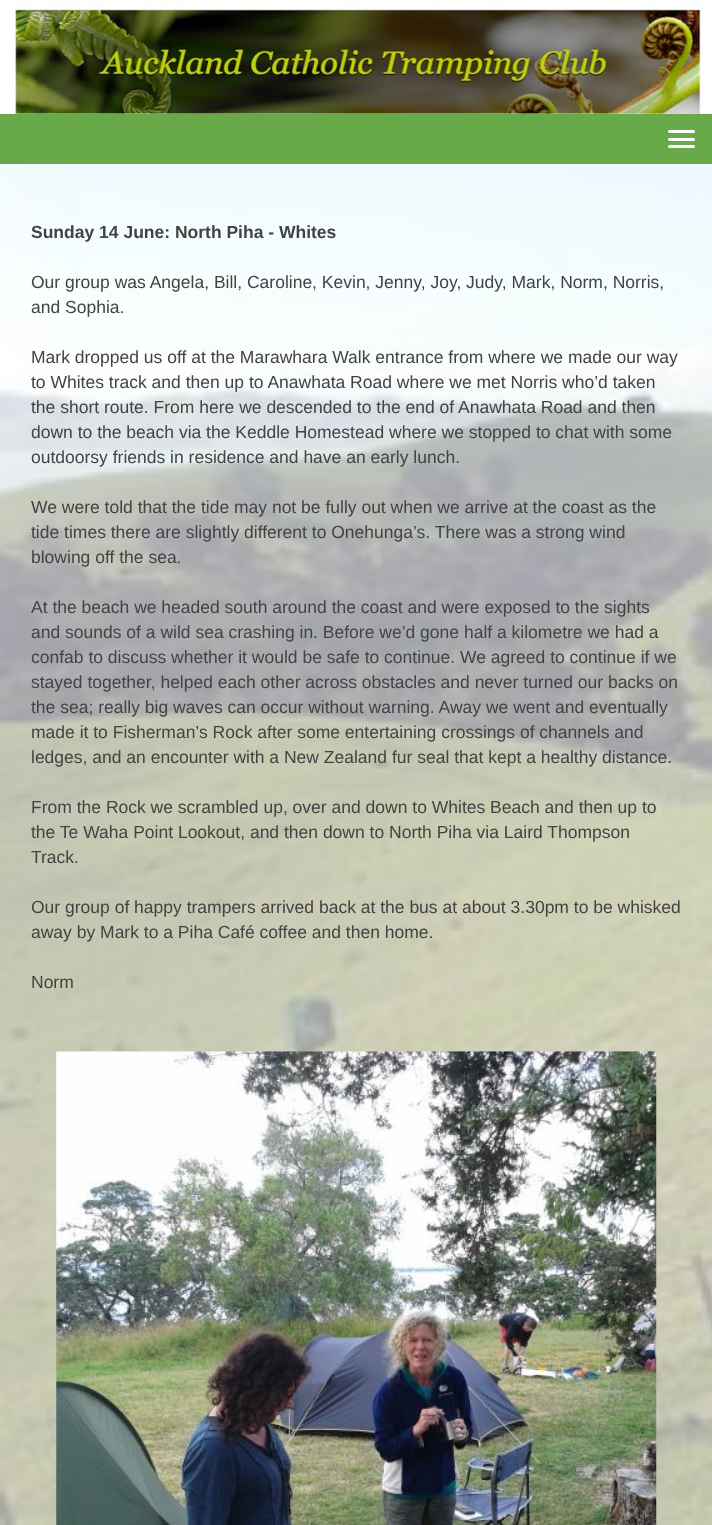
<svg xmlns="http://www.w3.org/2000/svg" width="712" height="1525">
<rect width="100%" height="100%" fill="#fff"/>
<image x="0" y="113" width="712" height="1412" href="media/1.png"/>
<image x="0" y="0" width="712" height="114" href="media/2.png"/>
<rect y="114" width="712" height="50" fill="#68a94a"/>
<rect x="668" y="130" width="27" height="3" rx="1.5" fill="#fff"/>
<rect x="668" y="138" width="27" height="3" rx="1.5" fill="#fff"/>
<rect x="668" y="145" width="27" height="3" rx="1.5" fill="#fff"/>
<rect y="164" width="712" height="1361" fill="#ffffffa1"/>
<text x="31" y="238" style="font-family:Liberation Sans;font-size:17.5px;font-weight:bold;fill:#434343">Sunday 14 June: North Piha - Whites</text>
<text x="31" y="288" style="font-family:Liberation Sans;font-size:17.5px;fill:#434343">Our group was Angela, Bill, Caroline, Kevin, Jenny, Joy, Judy, Mark, Norm, Norris,</text>
<text x="31" y="313" style="font-family:Liberation Sans;font-size:17.5px;fill:#434343">and Sophia.</text>
<text x="31" y="363" style="font-family:Liberation Sans;font-size:17.5px;fill:#434343">Mark dropped us off at the Marawhara Walk entrance from where we made our way</text>
<text x="31" y="388" style="font-family:Liberation Sans;font-size:17.5px;fill:#434343">to Whites track and then up to Anawhata Road where we met Norris who’d taken</text>
<text x="31" y="413" style="font-family:Liberation Sans;font-size:17.5px;fill:#434343">the short route. From here we descended to the end of Anawhata Road and then</text>
<text x="31" y="438" style="font-family:Liberation Sans;font-size:17.5px;fill:#434343">down to the beach via the Keddle Homestead where we stopped to chat with some</text>
<text x="31" y="463" style="font-family:Liberation Sans;font-size:17.5px;fill:#434343">outdoorsy friends in residence and have an early lunch.</text>
<text x="31" y="513" style="font-family:Liberation Sans;font-size:17.5px;fill:#434343">We were told that the tide may not be fully out when we arrive at the coast as the</text>
<text x="31" y="538" style="font-family:Liberation Sans;font-size:17.5px;fill:#434343">tide times there are slightly different to Onehunga’s. There was a strong wind</text>
<text x="31" y="563" style="font-family:Liberation Sans;font-size:17.5px;fill:#434343">blowing off the sea.</text>
<text x="31" y="613" style="font-family:Liberation Sans;font-size:17.5px;fill:#434343">At the beach we headed south around the coast and were exposed to the sights</text>
<text x="31" y="638" style="font-family:Liberation Sans;font-size:17.5px;fill:#434343">and sounds of a wild sea crashing in. Before we’d gone half a kilometre we had a</text>
<text x="31" y="663" style="font-family:Liberation Sans;font-size:17.5px;fill:#434343">confab to discuss whether it would be safe to continue. We agreed to continue if we</text>
<text x="31" y="688" style="font-family:Liberation Sans;font-size:17.5px;fill:#434343">stayed together, helped each other across obstacles and never turned our backs on</text>
<text x="31" y="713" style="font-family:Liberation Sans;font-size:17.5px;fill:#434343">the sea; really big waves can occur without warning. Away we went and eventually</text>
<text x="31" y="738" style="font-family:Liberation Sans;font-size:17.5px;fill:#434343">made it to Fisherman’s Rock after some entertaining crossings of channels and</text>
<text x="31" y="763" style="font-family:Liberation Sans;font-size:17.5px;fill:#434343">ledges, and an encounter with a New Zealand fur seal that kept a healthy distance.</text>
<text x="31" y="813" style="font-family:Liberation Sans;font-size:17.5px;fill:#434343">From the Rock we scrambled up, over and down to Whites Beach and then up to</text>
<text x="31" y="838" style="font-family:Liberation Sans;font-size:17.5px;fill:#434343">the Te Waha Point Lookout, and then down to North Piha via Laird Thompson</text>
<text x="31" y="863" style="font-family:Liberation Sans;font-size:17.5px;fill:#434343">Track.</text>
<text x="31" y="913" style="font-family:Liberation Sans;font-size:17.5px;fill:#434343">Our group of happy trampers arrived back at the bus at about 3.30pm to be whisked</text>
<text x="31" y="938" style="font-family:Liberation Sans;font-size:17.5px;fill:#434343">away by Mark to a Piha Café coffee and then home.</text>
<text x="31" y="988" style="font-family:Liberation Sans;font-size:17.5px;fill:#434343">Norm</text>
<image x="56" y="1051" width="601" height="474" href="media/3.png"/>
</svg>
